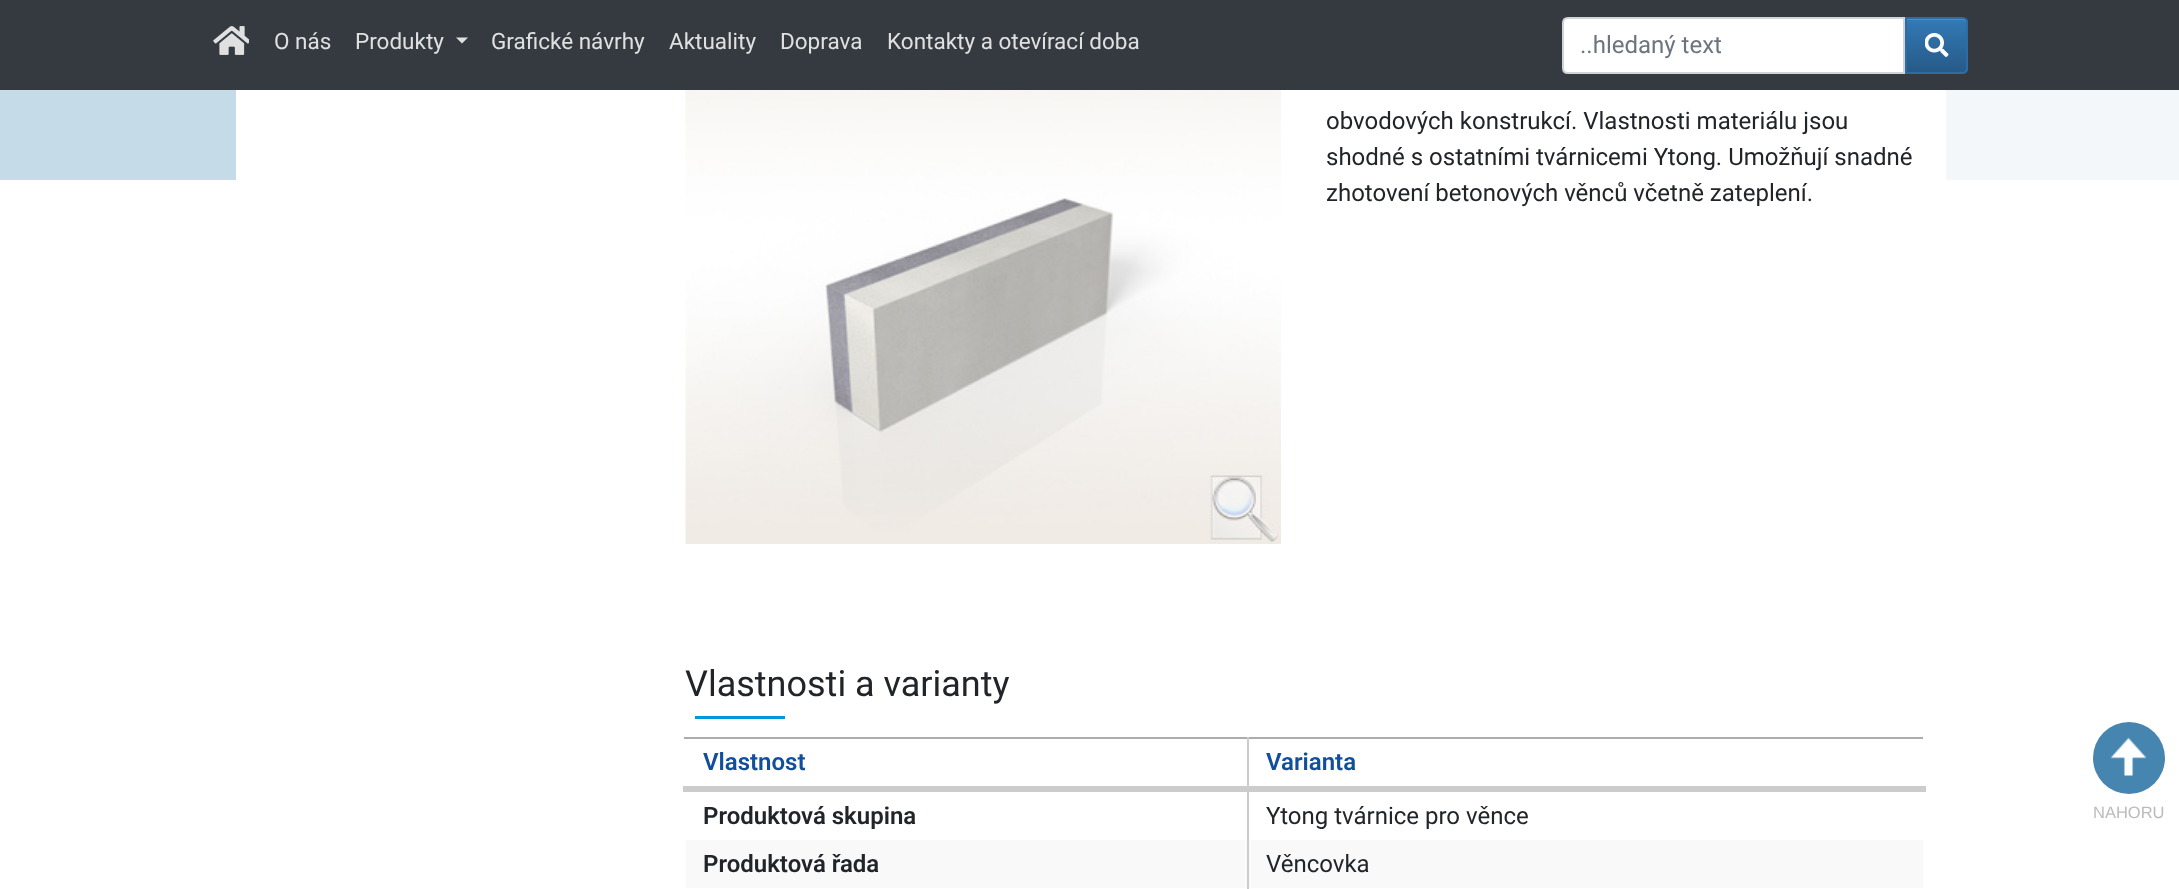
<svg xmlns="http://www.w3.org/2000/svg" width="2179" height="889">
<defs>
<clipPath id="clip1"><path d="M1905 17h57c3.5 0 6 2.5 6 6v45c0 3.5-2.5 6-6 6h-57z"/></clipPath>
<linearGradient id="g1" gradientUnits="userSpaceOnUse" x1="1937" y1="18" x2="1937" y2="72"><stop offset="0" stop-color="#337ab7"/><stop offset="1" stop-color="#265a88"/></linearGradient>
<linearGradient id="g2" gradientUnits="userSpaceOnUse" x1="437" y1="617" x2="1743" y2="-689"><stop offset="0.3" stop-color="#c5dbe8"/><stop offset="0.7" stop-color="#f3f7fa"/></linearGradient>
</defs>
<rect width="100%" height="100%" fill="#fff"/>
<rect width="2179" height="90" fill="#343a40"/>
<image x="213" y="26" width="36" height="29" href="media/1.png"/>
<text x="274" y="49" style="font-family:Roboto;font-size:22.5px;fill:#e0e0e0">O nás</text>
<text x="355" y="49" style="font-family:Roboto;font-size:22.5px;fill:#e0e0e0">Produkty</text>
<path d="M456 37.5h12l-6 6z" fill="#e0e0e0"/>
<text x="491" y="49" style="font-family:Roboto;font-size:22.5px;fill:#e0e0e0">Grafické návrhy</text>
<text x="669" y="49" style="font-family:Roboto;font-size:22.5px;fill:#e0e0e0">Aktuality</text>
<text x="780" y="49" style="font-family:Roboto;font-size:22.5px;fill:#e0e0e0">Doprava</text>
<text x="887" y="49" style="font-family:Roboto;font-size:22.5px;fill:#e0e0e0">Kontakty a otevírací doba</text>
<path d="M1568 18h336v55h-336c-3 0-5-2-5-5v-45c0-3 2-5 5-5z" fill="#fff" stroke="#ced4da" stroke-width="2"/>
<text x="1580" y="53" style="font-family:Roboto;font-size:24px;fill:#6c757d">..hledaný text</text>
<g clip-path="url(#clip1)">
<rect x="1907" y="18" width="61" height="54" fill="url(#g1)"/>
</g>
<path d="M1907 18v2h56c5 1 3 9 3 12v38c1-1 1-2 1-3v-44c0-3-2-5-5-5z" fill="#ffffff26"/>
<path d="M1906 18h56c3 0 5 2 5 5v45c0 3-2 5-5 5h-56z" fill="none" stroke="#2e6da4" stroke-width="2"/>
<image x="1925" y="33" width="24" height="24" href="media/2.png"/>
<rect y="90" width="2179" height="90" fill="url(#g2)"/>
<rect x="236" y="90" width="1710" height="90" fill="#fff"/>
<image x="685" y="90" width="596" height="454" href="media/3.png"/>
<text x="1326" y="129" style="font-family:Roboto;font-size:24px;fill:#212529">obvodových konstrukcí. Vlastnosti materiálu jsou</text>
<text x="1326" y="165" style="font-family:Roboto;font-size:24px;fill:#212529">shodné s ostatními tvárnicemi Ytong. Umožňují snadné</text>
<text x="1326" y="201" style="font-family:Roboto;font-size:24px;fill:#212529">zhotovení betonových věnců včetně zateplení.</text>
<text x="685" y="696" style="font-family:Roboto;font-size:36px;fill:#212529">Vlastnosti a varianty</text>
<rect x="695" y="716" width="90" height="3" fill="#0097db"/>
<rect x="684" y="737" width="1239" height="2" fill="#acacac"/>
<rect x="686" y="840" width="1237" height="48" fill="#f9f9f9"/>
<rect x="1247" y="789" width="2" height="100" fill="#ccc"/>
<rect x="1247" y="737" width="2" height="54" fill="#ccc"/>
<rect x="683" y="786" width="1243" height="6" fill="#ccc"/>
<text x="703" y="770" style="font-family:Roboto;font-size:24px;font-weight:600;fill:#114e9b">Vlastnost</text>
<text x="1266" y="770" style="font-family:Roboto;font-size:24px;font-weight:600;fill:#114e9b">Varianta</text>
<text x="703" y="824" style="font-family:Roboto;font-size:24px;font-weight:600;fill:#212529">Produktová skupina</text>
<text x="1266" y="824" style="font-family:Roboto;font-size:24px;fill:#212529">Ytong tvárnice pro věnce</text>
<text x="703" y="872" style="font-family:Roboto;font-size:24px;font-weight:600;fill:#212529">Produktová řada</text>
<text x="1266" y="872" style="font-family:Roboto;font-size:24px;fill:#212529">Věncovka</text>
<circle cx="2129" cy="758" r="36" fill="#4585af"/>
<image x="2110" y="737" width="37" height="39" href="media/4.png"/>
<text x="2093" y="818" style="font-family:Liberation Sans;font-size:16.5px;fill:#bbb">NAHORU</text>
</svg>
